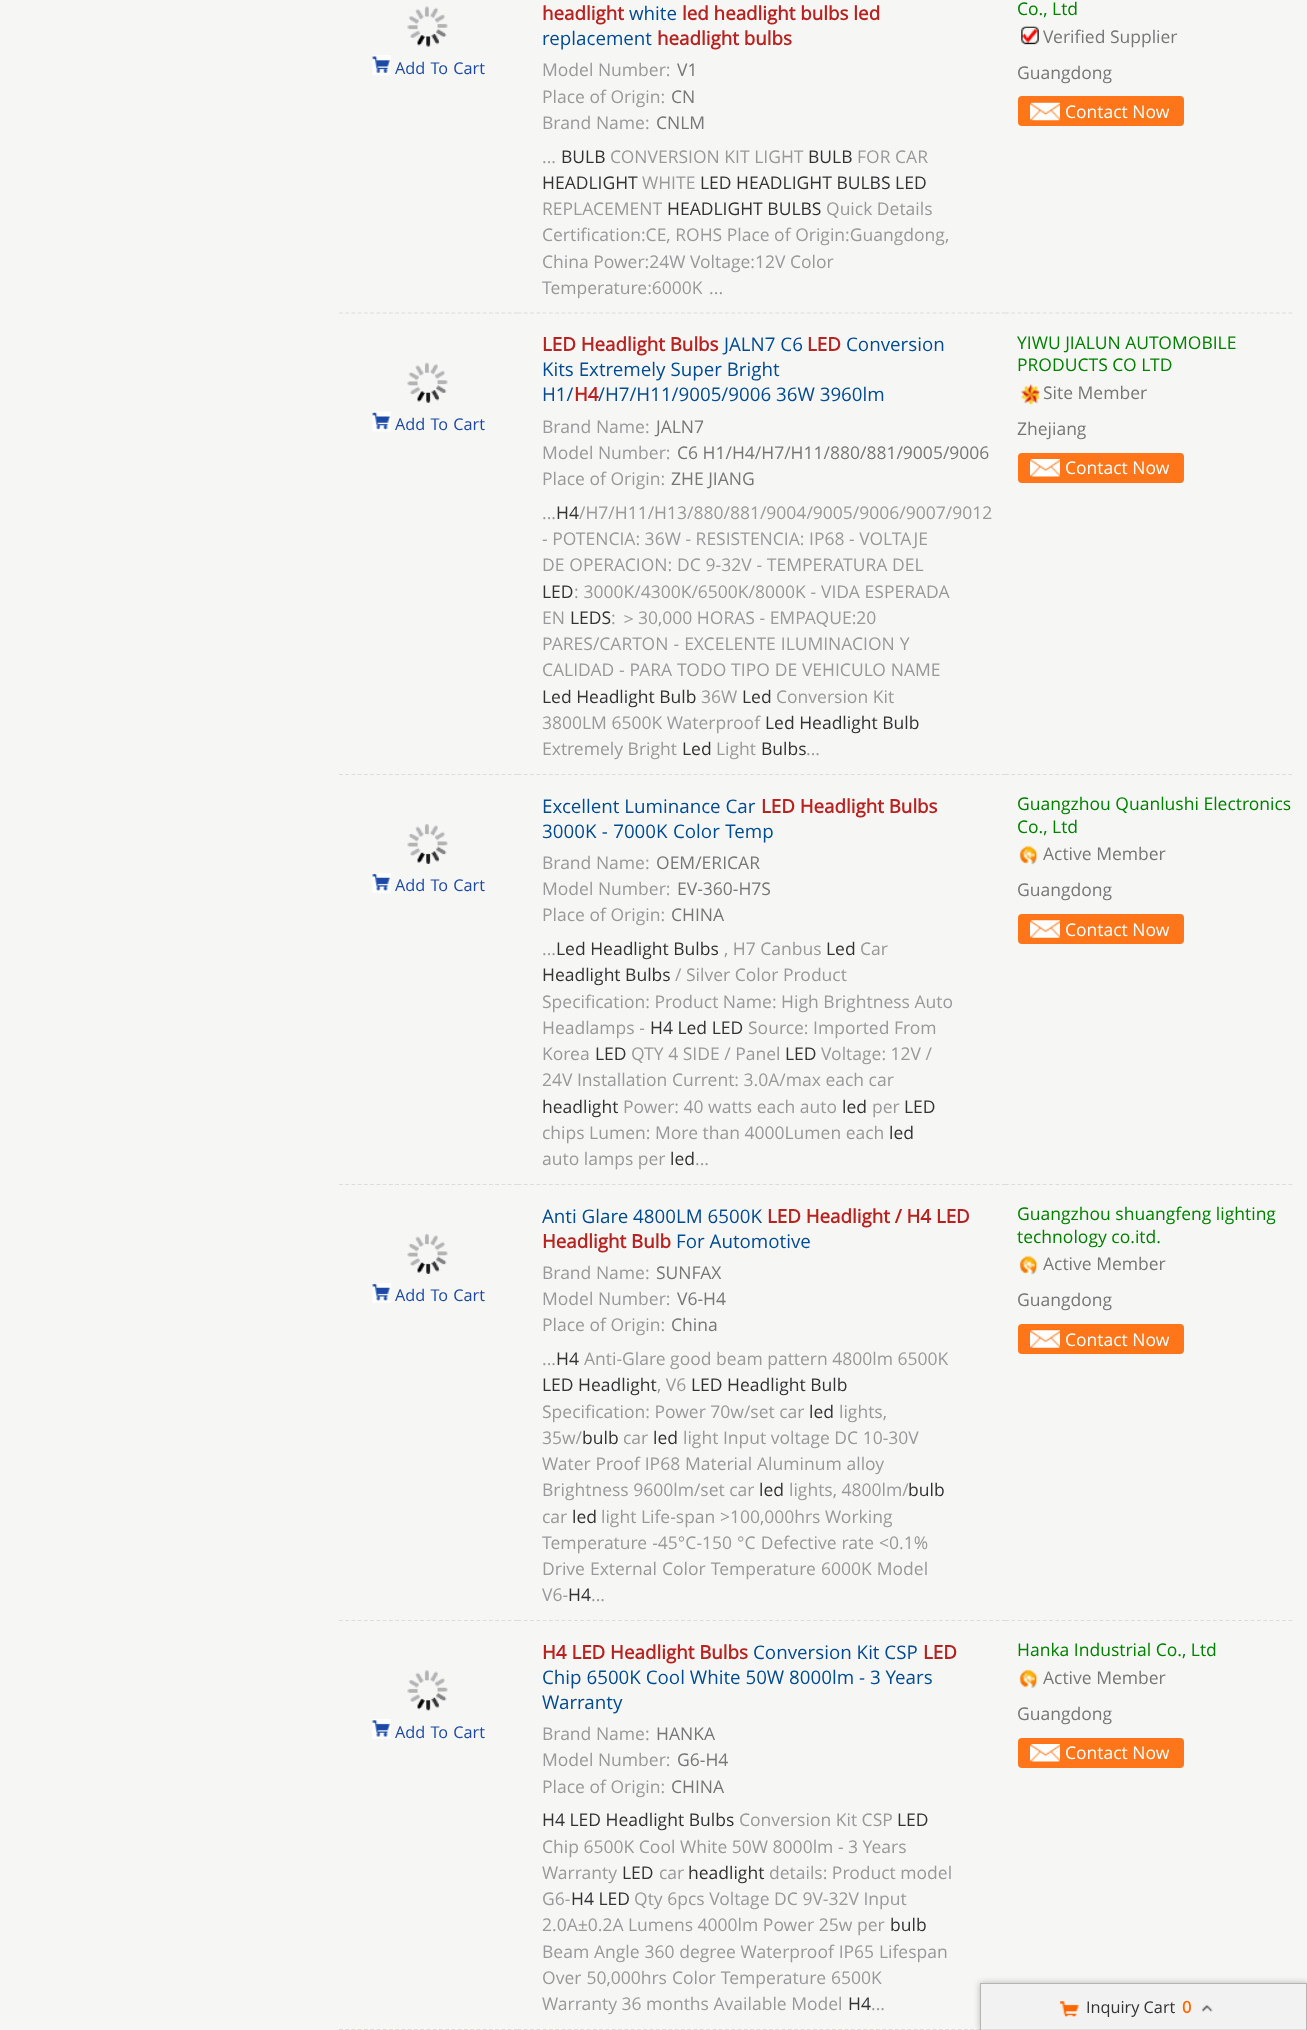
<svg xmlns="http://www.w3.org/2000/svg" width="1307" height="2030">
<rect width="100%" height="100%" fill="#f6f6f4"/>
<path d="M339 313h178.5" fill="none" stroke="#dcdcdc" stroke-width="1.2" stroke-dasharray="3.75 2.5"/>
<image x="407" y="6" width="41" height="41" href="media/1.png"/>
<image x="372" y="55" width="19" height="20" href="media/2.png"/>
<text x="395" y="74" word-spacing="1" style="font-family:Open Sans;font-size:16.25px;fill:#1c49a4">Add To Cart</text>
<path d="M517.5 313h487.5" fill="none" stroke="#dcdcdc" stroke-width="1.2" stroke-dasharray="3.75 2.54"/>
<text x="542" y="20" style="font-family:Open Sans;font-size:18.75px;font-weight:bold;fill:#b82220">headlight</text>
<text x="629" y="20" style="font-family:Open Sans;font-size:18.75px;fill:#004b91">white</text>
<text x="682" y="20" style="font-family:Open Sans;font-size:18.75px;font-weight:bold;fill:#b82220">led headlight bulbs led</text>
<text x="542" y="45" style="font-family:Open Sans;font-size:18.75px;fill:#004b91">replacement</text>
<text x="657" y="45" style="font-family:Open Sans;font-size:18.75px;font-weight:bold;fill:#b82220">headlight bulbs</text>
<text x="542" y="76" style="font-family:Open Sans;font-size:17.5px;fill:#999">Model Number:</text>
<text x="677" y="76" style="font-family:Open Sans;font-size:17.5px;fill:#777">V1</text>
<text x="542" y="103" style="font-family:Open Sans;font-size:17.5px;fill:#999">Place of Origin:</text>
<text x="671" y="103" style="font-family:Open Sans;font-size:17.5px;fill:#777">CN</text>
<text x="542" y="129" style="font-family:Open Sans;font-size:17.5px;fill:#999">Brand Name:</text>
<text x="656" y="129" style="font-family:Open Sans;font-size:17.5px;fill:#777">CNLM</text>
<text x="542" y="163" style="font-family:Open Sans;font-size:17.5px;fill:#999">...</text>
<text x="561" y="163" style="font-family:Open Sans;font-size:17.5px;fill:#333">BULB</text>
<text x="610" y="163" style="font-family:Open Sans;font-size:17.5px;fill:#999">CONVERSION KIT LIGHT</text>
<text x="808" y="163" style="font-family:Open Sans;font-size:17.5px;fill:#333">BULB</text>
<text x="857" y="163" style="font-family:Open Sans;font-size:17.5px;fill:#999">FOR CAR</text>
<text x="542" y="189" style="font-family:Open Sans;font-size:17.5px;fill:#333">HEADLIGHT</text>
<text x="642" y="189" style="font-family:Open Sans;font-size:17.5px;fill:#999">WHITE</text>
<text x="700" y="189" style="font-family:Open Sans;font-size:17.5px;fill:#333">LED HEADLIGHT BULBS LED</text>
<text x="542" y="215" style="font-family:Open Sans;font-size:17.5px;fill:#999">REPLACEMENT</text>
<text x="667" y="215" style="font-family:Open Sans;font-size:17.5px;fill:#333">HEADLIGHT BULBS</text>
<text x="826" y="215" style="font-family:Open Sans;font-size:17.5px;fill:#999">Quick Details</text>
<text x="542" y="241" style="font-family:Open Sans;font-size:17.5px;fill:#999">Certification:CE, ROHS Place of Origin:Guangdong,</text>
<text x="542" y="268" style="font-family:Open Sans;font-size:17.5px;fill:#999">China Power:24W Voltage:12V Color</text>
<text x="542" y="294" word-spacing="2" style="font-family:Open Sans;font-size:17.5px;fill:#999">Temperature:6000K ...</text>
<path d="M1005 313h287.5" fill="none" stroke="#dcdcdc" stroke-width="1.2" stroke-dasharray="3.75 2.55"/>
<text x="1017" y="15" style="font-family:Open Sans;font-size:17.5px;fill:#008000">Co., Ltd</text>
<image x="1021" y="26" width="18" height="19" href="media/3.png"/>
<text x="1043" y="43" style="font-family:Open Sans;font-size:17.5px;fill:#777">Verified Supplier</text>
<text x="1017" y="79" style="font-family:Open Sans;font-size:17.5px;fill:#777">Guangdong</text>
<rect x="1018" y="96" width="166" height="30" rx="4" fill="#ff7519"/>
<image x="1030" y="102" width="30" height="19" href="media/4.png"/>
<text x="1065" y="118" style="font-family:Open Sans;font-size:17.5px;fill:#fff">Contact Now</text>
<path d="M339 774.5h178.5" fill="none" stroke="#dcdcdc" stroke-width="1.2" stroke-dasharray="3.75 2.5"/>
<image x="407" y="362" width="41" height="41" href="media/5.png"/>
<image x="372" y="411" width="19" height="21" href="media/6.png"/>
<text x="395" y="430" word-spacing="1" style="font-family:Open Sans;font-size:16.25px;fill:#1c49a4">Add To Cart</text>
<path d="M517.5 774.5h487.5" fill="none" stroke="#dcdcdc" stroke-width="1.2" stroke-dasharray="3.75 2.54"/>
<text x="542" y="351" style="font-family:Open Sans;font-size:18.75px;font-weight:bold;fill:#b82220">LED Headlight Bulbs</text>
<text x="724" y="351" style="font-family:Open Sans;font-size:18.75px;fill:#004b91">JALN7 C6</text>
<text x="807" y="351" style="font-family:Open Sans;font-size:18.75px;font-weight:bold;fill:#b82220">LED</text>
<text x="846" y="351" style="font-family:Open Sans;font-size:18.75px;fill:#004b91">Conversion</text>
<text x="542" y="376" style="font-family:Open Sans;font-size:18.75px;fill:#004b91">Kits Extremely Super Bright</text>
<text x="542" y="401" style="font-family:Open Sans;font-size:18.75px;fill:#004b91">H1/</text>
<text x="574" y="401" style="font-family:Open Sans;font-size:18.75px;font-weight:bold;fill:#b82220">H4</text>
<text x="598" y="401" style="font-family:Open Sans;font-size:18.75px;fill:#004b91">/H7/H11/9005/9006 36W 3960lm</text>
<text x="542" y="433" style="font-family:Open Sans;font-size:17.5px;fill:#999">Brand Name:</text>
<text x="656" y="433" style="font-family:Open Sans;font-size:17.5px;fill:#777">JALN7</text>
<text x="542" y="459" style="font-family:Open Sans;font-size:17.5px;fill:#999">Model Number:</text>
<text x="677" y="459" style="font-family:Open Sans;font-size:17.5px;fill:#777">C6 H1/H4/H7/H11/880/881/9005/9006</text>
<text x="542" y="485" style="font-family:Open Sans;font-size:17.5px;fill:#999">Place of Origin:</text>
<text x="671" y="485" style="font-family:Open Sans;font-size:17.5px;fill:#777">ZHE JIANG</text>
<text x="542" y="519" style="font-family:Open Sans;font-size:17.5px;fill:#999">...</text>
<text x="556" y="519" style="font-family:Open Sans;font-size:17.5px;fill:#333">H4</text>
<text x="579" y="519" style="font-family:Open Sans;font-size:17.5px;fill:#999">/H7/H11/H13/880/881/9004/9005/9006/9007/9012</text>
<text x="542" y="545" style="font-family:Open Sans;font-size:17.5px;fill:#999">- POTENCIA: 36W - RESISTENCIA: IP68 - VOLTAJE</text>
<text x="542" y="571" word-spacing="0.25" style="font-family:Open Sans;font-size:17.5px;fill:#999">DE OPERACION: DC 9-32V - TEMPERATURA DEL</text>
<text x="542" y="598" style="font-family:Open Sans;font-size:17.5px;fill:#333">LED</text>
<text x="574" y="598" word-spacing="0.25" style="font-family:Open Sans;font-size:17.5px;fill:#999">: 3000K/4300K/6500K/8000K - VIDA ESPERADA</text>
<text x="542" y="624" style="font-family:Open Sans;font-size:17.5px;fill:#999">EN</text>
<text x="570" y="624" style="font-family:Open Sans;font-size:17.5px;fill:#333">LEDS</text>
<text x="611" y="624" style="font-family:Open Sans;font-size:17.5px;fill:#999">:</text>
<text x="620" y="624" style="font-family:WenQuanYi Zen Hei;font-size:17.5px;font-weight:500;fill:#999">＞</text>
<text x="638" y="624" style="font-family:Open Sans;font-size:17.5px;fill:#999">30,000 HORAS - EMPAQUE:20</text>
<text x="542" y="650" word-spacing="0.5" style="font-family:Open Sans;font-size:17.5px;fill:#999">PARES/CARTON - EXCELENTE ILUMINACION Y</text>
<text x="542" y="676" word-spacing="0.25" style="font-family:Open Sans;font-size:17.5px;fill:#999">CALIDAD - PARA TODO TIPO DE VEHICULO NAME</text>
<text x="542" y="703" style="font-family:Open Sans;font-size:17.5px;fill:#333">Led Headlight Bulb</text>
<text x="701" y="703" style="font-family:Open Sans;font-size:17.5px;fill:#999">36W</text>
<text x="742" y="703" style="font-family:Open Sans;font-size:17.5px;fill:#333">Led</text>
<text x="776" y="703" style="font-family:Open Sans;font-size:17.5px;fill:#999">Conversion Kit</text>
<text x="542" y="729" style="font-family:Open Sans;font-size:17.5px;fill:#999">3800LM 6500K Waterproof</text>
<text x="765" y="729" style="font-family:Open Sans;font-size:17.5px;fill:#333">Led Headlight Bulb</text>
<text x="542" y="755" style="font-family:Open Sans;font-size:17.5px;fill:#999">Extremely Bright</text>
<text x="682" y="755" style="font-family:Open Sans;font-size:17.5px;fill:#333">Led</text>
<text x="716" y="755" style="font-family:Open Sans;font-size:17.5px;fill:#999">Light</text>
<text x="761" y="755" style="font-family:Open Sans;font-size:17.5px;fill:#333">Bulbs</text>
<text x="806" y="755" style="font-family:Open Sans;font-size:17.5px;fill:#999">...</text>
<path d="M1005 774.5h287.5" fill="none" stroke="#dcdcdc" stroke-width="1.2" stroke-dasharray="3.75 2.55"/>
<text x="1017" y="349" style="font-family:Open Sans;font-size:17.5px;fill:#008000">YIWU JIALUN AUTOMOBILE</text>
<text x="1017" y="371" style="font-family:Open Sans;font-size:17.5px;fill:#008000">PRODUCTS CO LTD</text>
<image x="1021" y="384" width="19" height="21" href="media/7.png"/>
<text x="1043" y="399" style="font-family:Open Sans;font-size:17.5px;fill:#777">Site Member</text>
<text x="1017" y="435" style="font-family:Open Sans;font-size:17.5px;fill:#777">Zhejiang</text>
<rect x="1018" y="453" width="166" height="30" rx="4" fill="#ff7519"/>
<image x="1030" y="459" width="30" height="18" href="media/8.png"/>
<text x="1065" y="474" style="font-family:Open Sans;font-size:17.5px;fill:#fff">Contact Now</text>
<path d="M339 1184.5h178.5" fill="none" stroke="#dcdcdc" stroke-width="1.2" stroke-dasharray="3.75 2.5"/>
<image x="407" y="824" width="41" height="40" href="media/9.png"/>
<image x="372" y="873" width="19" height="20" href="media/10.png"/>
<text x="395" y="891" word-spacing="1" style="font-family:Open Sans;font-size:16.25px;fill:#1c49a4">Add To Cart</text>
<path d="M517.5 1184.5h487.5" fill="none" stroke="#dcdcdc" stroke-width="1.2" stroke-dasharray="3.75 2.54"/>
<text x="542" y="813" style="font-family:Open Sans;font-size:18.75px;fill:#004b91">Excellent Luminance Car</text>
<text x="761" y="813" style="font-family:Open Sans;font-size:18.75px;font-weight:bold;fill:#b82220">LED Headlight Bulbs</text>
<text x="542" y="838" word-spacing="0.5" style="font-family:Open Sans;font-size:18.75px;fill:#004b91">3000K - 7000K Color Temp</text>
<text x="542" y="869" style="font-family:Open Sans;font-size:17.5px;fill:#999">Brand Name:</text>
<text x="656" y="869" style="font-family:Open Sans;font-size:17.5px;fill:#777">OEM/ERICAR</text>
<text x="542" y="895" style="font-family:Open Sans;font-size:17.5px;fill:#999">Model Number:</text>
<text x="677" y="895" style="font-family:Open Sans;font-size:17.5px;fill:#777">EV-360-H7S</text>
<text x="542" y="921" style="font-family:Open Sans;font-size:17.5px;fill:#999">Place of Origin:</text>
<text x="671" y="921" style="font-family:Open Sans;font-size:17.5px;fill:#777">CHINA</text>
<text x="542" y="955" style="font-family:Open Sans;font-size:17.5px;fill:#999">...</text>
<text x="556" y="955" style="font-family:Open Sans;font-size:17.5px;fill:#333">Led Headlight Bulbs</text>
<text x="724" y="955" style="font-family:Open Sans;font-size:17.5px;fill:#999">, H7 Canbus</text>
<text x="826" y="955" style="font-family:Open Sans;font-size:17.5px;fill:#333">Led</text>
<text x="860" y="955" style="font-family:Open Sans;font-size:17.5px;fill:#999">Car</text>
<text x="542" y="981" style="font-family:Open Sans;font-size:17.5px;fill:#333">Headlight Bulbs</text>
<text x="675" y="981" style="font-family:Open Sans;font-size:17.5px;fill:#999">/ Silver Color Product</text>
<text x="542" y="1008" style="font-family:Open Sans;font-size:17.5px;fill:#999">Specification: Product Name: High Brightness Auto</text>
<text x="542" y="1034" style="font-family:Open Sans;font-size:17.5px;fill:#999">Headlamps -</text>
<text x="650" y="1034" style="font-family:Open Sans;font-size:17.5px;fill:#333">H4 Led LED</text>
<text x="748" y="1034" style="font-family:Open Sans;font-size:17.5px;fill:#999">Source: Imported From</text>
<text x="542" y="1060" style="font-family:Open Sans;font-size:17.5px;fill:#999">Korea</text>
<text x="595" y="1060" style="font-family:Open Sans;font-size:17.5px;fill:#333">LED</text>
<text x="631" y="1060" style="font-family:Open Sans;font-size:17.5px;fill:#999">QTY 4 SIDE / Panel</text>
<text x="785" y="1060" style="font-family:Open Sans;font-size:17.5px;fill:#333">LED</text>
<text x="821" y="1060" style="font-family:Open Sans;font-size:17.5px;fill:#999">Voltage: 12V /</text>
<text x="542" y="1086" style="font-family:Open Sans;font-size:17.5px;fill:#999">24V Installation Current: 3.0A/max each car</text>
<text x="542" y="1113" style="font-family:Open Sans;font-size:17.5px;fill:#333">headlight</text>
<text x="623" y="1113" style="font-family:Open Sans;font-size:17.5px;fill:#999">Power: 40 watts each auto</text>
<text x="842" y="1113" style="font-family:Open Sans;font-size:17.5px;fill:#333">led</text>
<text x="872" y="1113" style="font-family:Open Sans;font-size:17.5px;fill:#999">per</text>
<text x="904" y="1113" style="font-family:Open Sans;font-size:17.5px;fill:#333">LED</text>
<text x="542" y="1139" style="font-family:Open Sans;font-size:17.5px;fill:#999">chips Lumen: More than 4000Lumen each</text>
<text x="889" y="1139" style="font-family:Open Sans;font-size:17.5px;fill:#333">led</text>
<text x="542" y="1165" style="font-family:Open Sans;font-size:17.5px;fill:#999">auto lamps per</text>
<text x="670" y="1165" style="font-family:Open Sans;font-size:17.5px;fill:#333">led</text>
<text x="695" y="1165" style="font-family:Open Sans;font-size:17.5px;fill:#999">...</text>
<path d="M1005 1184.5h287.5" fill="none" stroke="#dcdcdc" stroke-width="1.2" stroke-dasharray="3.75 2.55"/>
<text x="1017" y="810" style="font-family:Open Sans;font-size:17.5px;fill:#008000">Guangzhou Quanlushi Electronics</text>
<text x="1017" y="833" style="font-family:Open Sans;font-size:17.5px;fill:#008000">Co., Ltd</text>
<image x="1019" y="845" width="19" height="20" href="media/11.png"/>
<text x="1043" y="860" style="font-family:Open Sans;font-size:17.5px;fill:#777">Active Member</text>
<text x="1017" y="896" style="font-family:Open Sans;font-size:17.5px;fill:#777">Guangdong</text>
<rect x="1018" y="914" width="166" height="30" rx="4" fill="#ff7519"/>
<image x="1030" y="920" width="30" height="18" href="media/12.png"/>
<text x="1065" y="936" style="font-family:Open Sans;font-size:17.5px;fill:#fff">Contact Now</text>
<path d="M339 1620.5h178.5" fill="none" stroke="#dcdcdc" stroke-width="1.2" stroke-dasharray="3.75 2.5"/>
<image x="407" y="1234" width="41" height="40" href="media/9.png"/>
<image x="372" y="1283" width="19" height="20" href="media/13.png"/>
<text x="395" y="1301" word-spacing="1" style="font-family:Open Sans;font-size:16.25px;fill:#1c49a4">Add To Cart</text>
<path d="M517.5 1620.5h487.5" fill="none" stroke="#dcdcdc" stroke-width="1.2" stroke-dasharray="3.75 2.54"/>
<text x="542" y="1223" style="font-family:Open Sans;font-size:18.75px;fill:#004b91">Anti Glare 4800LM 6500K</text>
<text x="767" y="1223" style="font-family:Open Sans;font-size:18.75px;font-weight:bold;fill:#b82220">LED Headlight / H4 LED</text>
<text x="542" y="1248" style="font-family:Open Sans;font-size:18.75px;font-weight:bold;fill:#b82220">Headlight Bulb</text>
<text x="676" y="1248" style="font-family:Open Sans;font-size:18.75px;fill:#004b91">For Automotive</text>
<text x="542" y="1279" style="font-family:Open Sans;font-size:17.5px;fill:#999">Brand Name:</text>
<text x="656" y="1279" style="font-family:Open Sans;font-size:17.5px;fill:#777">SUNFAX</text>
<text x="542" y="1305" style="font-family:Open Sans;font-size:17.5px;fill:#999">Model Number:</text>
<text x="677" y="1305" style="font-family:Open Sans;font-size:17.5px;fill:#777">V6-H4</text>
<text x="542" y="1331" style="font-family:Open Sans;font-size:17.5px;fill:#999">Place of Origin:</text>
<text x="671" y="1331" style="font-family:Open Sans;font-size:17.5px;fill:#777">China</text>
<text x="542" y="1365" style="font-family:Open Sans;font-size:17.5px;fill:#999">...</text>
<text x="556" y="1365" style="font-family:Open Sans;font-size:17.5px;fill:#333">H4</text>
<text x="584" y="1365" style="font-family:Open Sans;font-size:17.5px;fill:#999">Anti-Glare good beam pattern 4800lm 6500K</text>
<text x="542" y="1391" style="font-family:Open Sans;font-size:17.5px;fill:#333">LED Headlight</text>
<text x="657" y="1391" style="font-family:Open Sans;font-size:17.5px;fill:#999">, V6</text>
<text x="691" y="1391" style="font-family:Open Sans;font-size:17.5px;fill:#333">LED Headlight Bulb</text>
<text x="542" y="1418" style="font-family:Open Sans;font-size:17.5px;fill:#999">Specification: Power 70w/set car</text>
<text x="809" y="1418" style="font-family:Open Sans;font-size:17.5px;fill:#333">led</text>
<text x="839" y="1418" style="font-family:Open Sans;font-size:17.5px;fill:#999">lights,</text>
<text x="542" y="1444" style="font-family:Open Sans;font-size:17.5px;fill:#999">35w/</text>
<text x="582" y="1444" style="font-family:Open Sans;font-size:17.5px;fill:#333">bulb</text>
<text x="623" y="1444" style="font-family:Open Sans;font-size:17.5px;fill:#999">car</text>
<text x="653" y="1444" style="font-family:Open Sans;font-size:17.5px;fill:#333">led</text>
<text x="683" y="1444" style="font-family:Open Sans;font-size:17.5px;fill:#999">light Input voltage DC 10-30V</text>
<text x="542" y="1470" word-spacing="0.25" style="font-family:Open Sans;font-size:17.5px;fill:#999">Water Proof IP68 Material Aluminum alloy</text>
<text x="542" y="1496" style="font-family:Open Sans;font-size:17.5px;fill:#999">Brightness 9600lm/set car</text>
<text x="759" y="1496" style="font-family:Open Sans;font-size:17.5px;fill:#333">led</text>
<text x="789" y="1496" style="font-family:Open Sans;font-size:17.5px;fill:#999">lights, 4800lm/</text>
<text x="908" y="1496" style="font-family:Open Sans;font-size:17.5px;fill:#333">bulb</text>
<text x="542" y="1523" style="font-family:Open Sans;font-size:17.5px;fill:#999">car</text>
<text x="572" y="1523" style="font-family:Open Sans;font-size:17.5px;fill:#333">led</text>
<text x="601" y="1523" style="font-family:Open Sans;font-size:17.5px;fill:#999">light Life-span &gt;100,000hrs Working</text>
<text x="542" y="1549" word-spacing="0.5" style="font-family:Open Sans;font-size:17.5px;fill:#999">Temperature -45°C-150 °C Defective rate &lt;0.1%</text>
<text x="542" y="1575" word-spacing="0.5" style="font-family:Open Sans;font-size:17.5px;fill:#999">Drive External Color Temperature 6000K Model</text>
<text x="542" y="1601" style="font-family:Open Sans;font-size:17.5px;fill:#999">V6-</text>
<text x="568" y="1601" style="font-family:Open Sans;font-size:17.5px;fill:#333">H4</text>
<text x="591" y="1601" style="font-family:Open Sans;font-size:17.5px;fill:#999">...</text>
<path d="M1005 1620.5h287.5" fill="none" stroke="#dcdcdc" stroke-width="1.2" stroke-dasharray="3.75 2.55"/>
<text x="1017" y="1220" style="font-family:Open Sans;font-size:17.5px;fill:#008000">Guangzhou shuangfeng lighting</text>
<text x="1017" y="1243" style="font-family:Open Sans;font-size:17.5px;fill:#008000">technology co.itd.</text>
<image x="1019" y="1255" width="19" height="20" href="media/11.png"/>
<text x="1043" y="1270" style="font-family:Open Sans;font-size:17.5px;fill:#777">Active Member</text>
<text x="1017" y="1306" style="font-family:Open Sans;font-size:17.5px;fill:#777">Guangdong</text>
<rect x="1018" y="1324" width="166" height="30" rx="4" fill="#ff7519"/>
<image x="1030" y="1330" width="30" height="18" href="media/12.png"/>
<text x="1065" y="1346" style="font-family:Open Sans;font-size:17.5px;fill:#fff">Contact Now</text>
<path d="M339 2029.5h178.5" fill="none" stroke="#dcdcdc" stroke-width="1.2" stroke-dasharray="3.75 2.5"/>
<image x="407" y="1670" width="41" height="41" href="media/14.png"/>
<image x="372" y="1719" width="19" height="20" href="media/15.png"/>
<text x="395" y="1738" word-spacing="1" style="font-family:Open Sans;font-size:16.25px;fill:#1c49a4">Add To Cart</text>
<path d="M517.5 2029.5h487.5" fill="none" stroke="#dcdcdc" stroke-width="1.2" stroke-dasharray="3.75 2.54"/>
<text x="542" y="1659" style="font-family:Open Sans;font-size:18.75px;font-weight:bold;fill:#b82220">H4 LED Headlight Bulbs</text>
<text x="753" y="1659" style="font-family:Open Sans;font-size:18.75px;fill:#004b91">Conversion Kit CSP</text>
<text x="923" y="1659" style="font-family:Open Sans;font-size:18.75px;font-weight:bold;fill:#b82220">LED</text>
<text x="542" y="1684" style="font-family:Open Sans;font-size:18.75px;fill:#004b91">Chip 6500K Cool White 50W 8000lm - 3 Years</text>
<text x="542" y="1709" style="font-family:Open Sans;font-size:18.75px;fill:#004b91">Warranty</text>
<text x="542" y="1740" style="font-family:Open Sans;font-size:17.5px;fill:#999">Brand Name:</text>
<text x="656" y="1740" style="font-family:Open Sans;font-size:17.5px;fill:#777">HANKA</text>
<text x="542" y="1766" style="font-family:Open Sans;font-size:17.5px;fill:#999">Model Number:</text>
<text x="677" y="1766" style="font-family:Open Sans;font-size:17.5px;fill:#777">G6-H4</text>
<text x="542" y="1793" style="font-family:Open Sans;font-size:17.5px;fill:#999">Place of Origin:</text>
<text x="671" y="1793" style="font-family:Open Sans;font-size:17.5px;fill:#777">CHINA</text>
<text x="542" y="1826" style="font-family:Open Sans;font-size:17.5px;fill:#333">H4 LED Headlight Bulbs</text>
<text x="739" y="1826" style="font-family:Open Sans;font-size:17.5px;fill:#999">Conversion Kit CSP</text>
<text x="897" y="1826" style="font-family:Open Sans;font-size:17.5px;fill:#333">LED</text>
<text x="542" y="1853" style="font-family:Open Sans;font-size:17.5px;fill:#999">Chip 6500K Cool White 50W 8000lm - 3 Years</text>
<text x="542" y="1879" style="font-family:Open Sans;font-size:17.5px;fill:#999">Warranty</text>
<text x="622" y="1879" style="font-family:Open Sans;font-size:17.5px;fill:#333">LED</text>
<text x="659" y="1879" style="font-family:Open Sans;font-size:17.5px;fill:#999">car</text>
<text x="688" y="1879" style="font-family:Open Sans;font-size:17.5px;fill:#333">headlight</text>
<text x="769" y="1879" style="font-family:Open Sans;font-size:17.5px;fill:#999">details: Product model</text>
<text x="542" y="1905" style="font-family:Open Sans;font-size:17.5px;fill:#999">G6-</text>
<text x="571" y="1905" style="font-family:Open Sans;font-size:17.5px;fill:#333">H4 LED</text>
<text x="634" y="1905" style="font-family:Open Sans;font-size:17.5px;fill:#999">Qty 6pcs Voltage DC 9V-32V Input</text>
<text x="542" y="1931" style="font-family:Open Sans;font-size:17.5px;fill:#999">2.0A±0.2A Lumens 4000lm Power 25w per</text>
<text x="890" y="1931" style="font-family:Open Sans;font-size:17.5px;fill:#333">bulb</text>
<text x="542" y="1958" word-spacing="0.25" style="font-family:Open Sans;font-size:17.5px;fill:#999">Beam Angle 360 degree Waterproof IP65 Lifespan</text>
<text x="542" y="1984" word-spacing="0.5" style="font-family:Open Sans;font-size:17.5px;fill:#999">Over 50,000hrs Color Temperature 6500K</text>
<text x="542" y="2010" style="font-family:Open Sans;font-size:17.5px;fill:#999">Warranty 36 months Available Model</text>
<text x="848" y="2010" style="font-family:Open Sans;font-size:17.5px;fill:#333">H4</text>
<text x="871" y="2010" style="font-family:Open Sans;font-size:17.5px;fill:#999">...</text>
<text x="1017" y="1656" style="font-family:Open Sans;font-size:17.5px;fill:#008000">Hanka Industrial Co., Ltd</text>
<image x="1019" y="1669" width="19" height="19" href="media/16.png"/>
<text x="1043" y="1684" style="font-family:Open Sans;font-size:17.5px;fill:#777">Active Member</text>
<text x="1017" y="1720" style="font-family:Open Sans;font-size:17.5px;fill:#777">Guangdong</text>
<rect x="1018" y="1738" width="166" height="30" rx="4" fill="#ff7519"/>
<image x="1030" y="1744" width="30" height="18" href="media/8.png"/>
<text x="1065" y="1759" style="font-family:Open Sans;font-size:17.5px;fill:#fff">Contact Now</text>
<rect x="980" y="1983" width="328" height="47" fill="#b5b5b5" filter="blur(3px)"/>
<rect x="980" y="1983" width="327" height="1" fill="#b5b5b5"/>
<rect x="1306" y="1983" width="1" height="47" fill="#b5b5b5"/>
<rect x="980" y="1983" width="1" height="47" fill="#b5b5b5"/>
<rect x="981" y="1984" width="325" height="45" fill="#f2f2f2"/>
<rect x="981" y="2029" width="325" height="1" fill="#dedede"/>
<image x="1060" y="2001" width="19" height="16" href="media/17.png"/>
<text x="1086" y="2013" style="font-family:Open Sans;font-size:16.25px;fill:#333">Inquiry Cart</text>
<text x="1182" y="2013" style="font-family:Open Sans;font-size:16.25px;font-weight:bold;fill:#f60">0</text>
<image x="1202" y="2004" width="11" height="8" href="media/18.png"/>
</svg>
